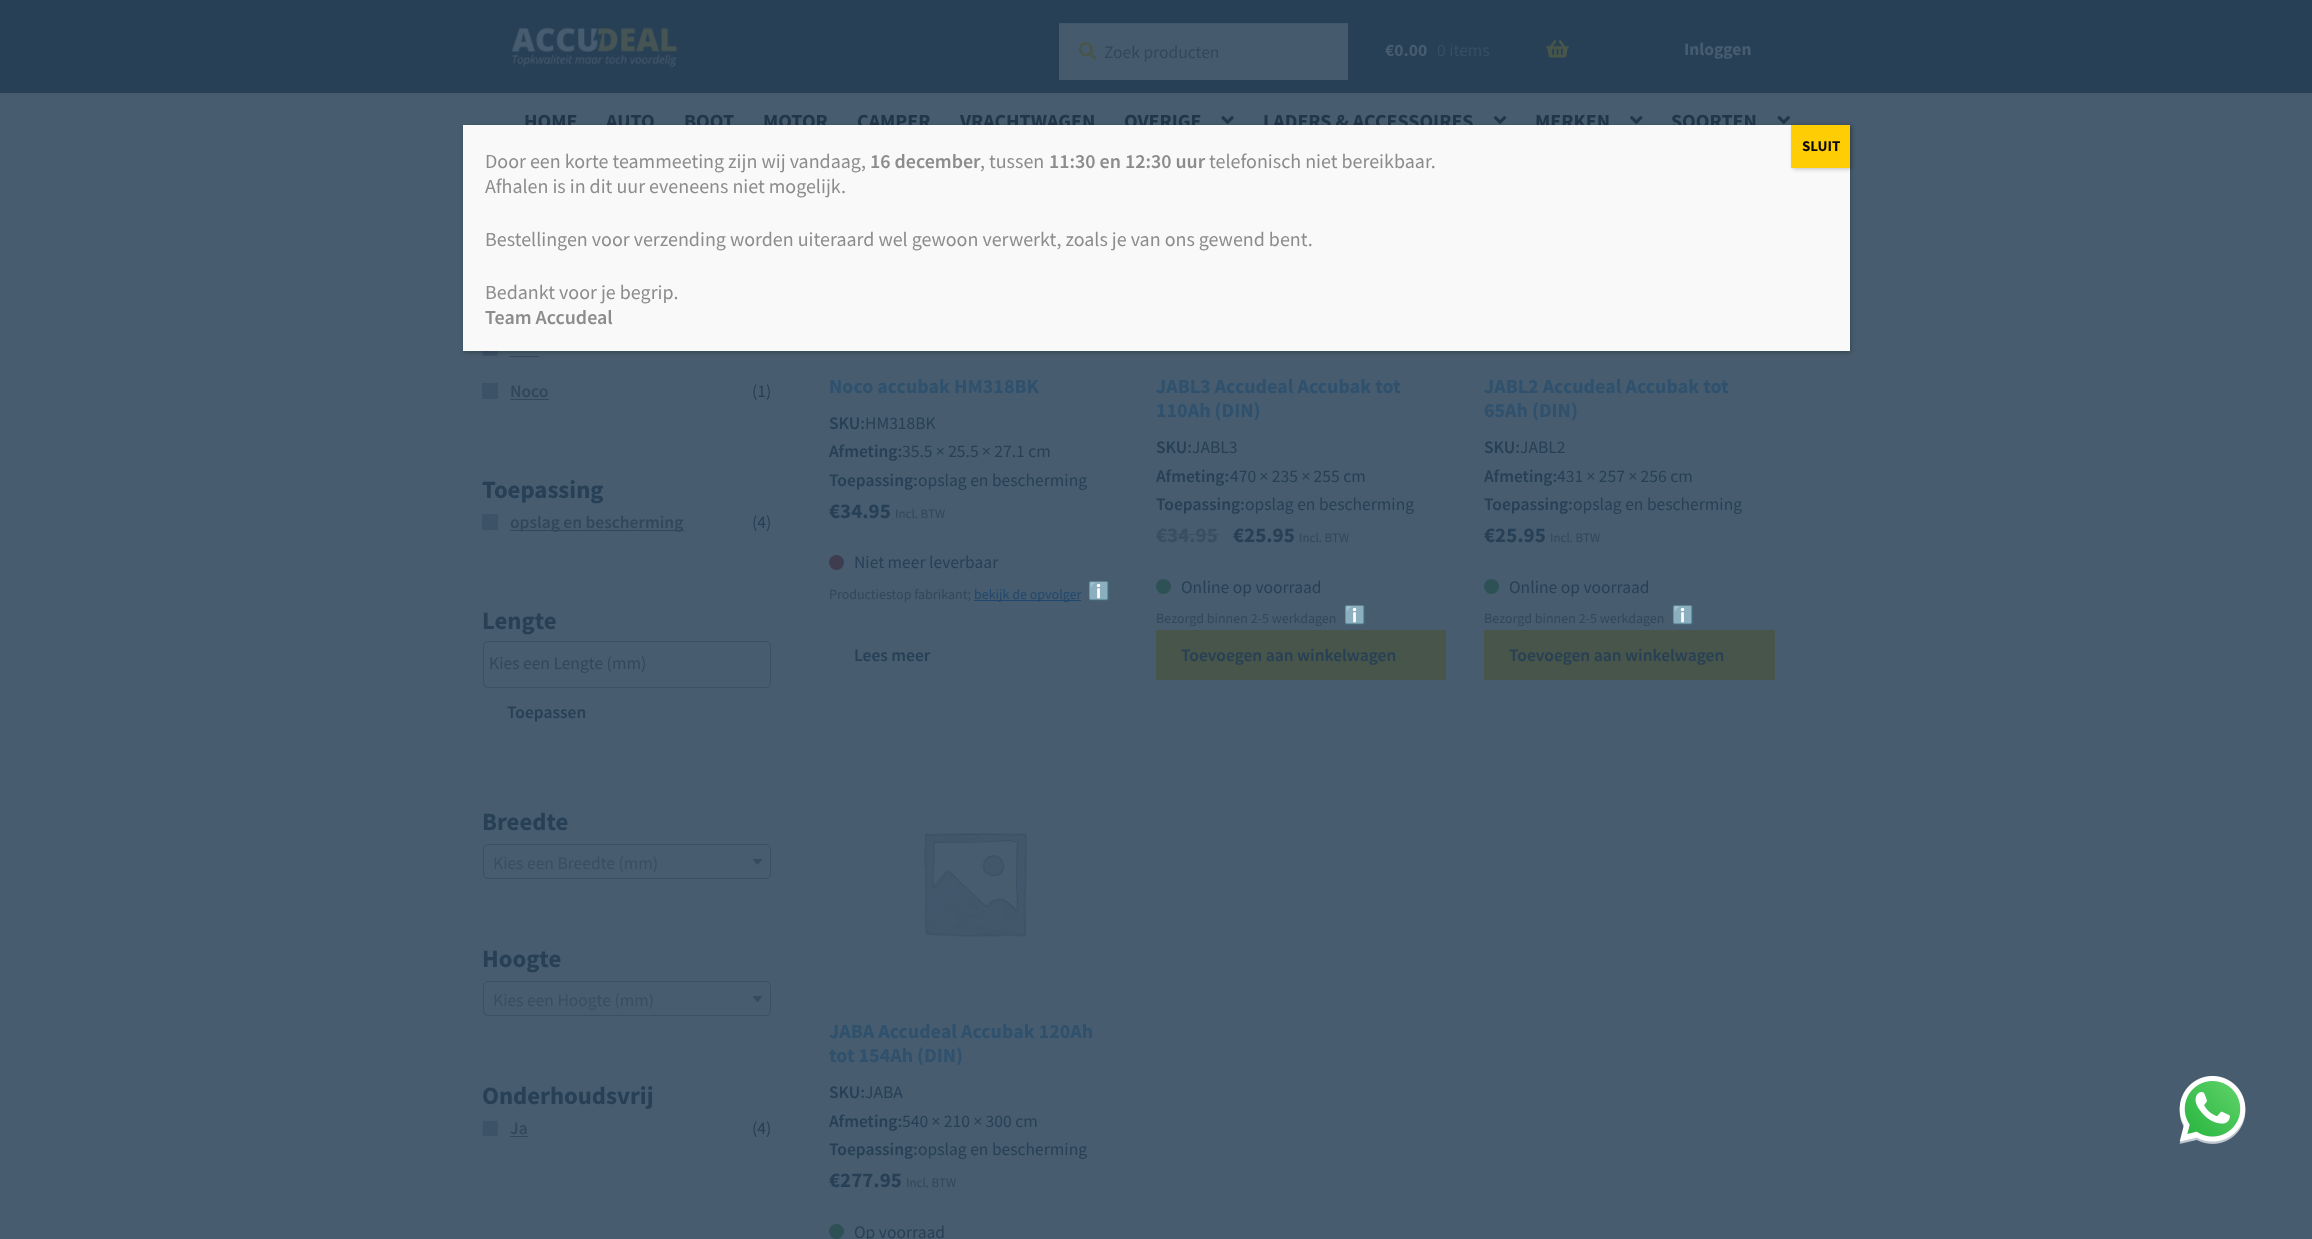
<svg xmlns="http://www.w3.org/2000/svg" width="2312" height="1239">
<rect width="100%" height="100%" fill="#475d6f"/>
<rect width="2312" height="93" fill="#274056"/>
<text x="1684" y="55" style="font-family:Source Sans Pro;font-size:17.5px;font-weight:bold;fill:#475d6f">Inloggen</text>
<image x="492" y="13" width="205" height="66" href="media/1.png"/>
<rect x="1059" y="24" width="289" height="56" fill="#455b6d"/>
<image x="1078" y="42" width="19" height="18" href="media/2.png"/>
<rect x="1059" y="23" width="289" height="1" fill="#415669"/>
<text x="1104" y="58" style="font-family:Source Sans Pro;font-size:17.5px;fill:#32485a">Zoek producten</text>
<text x="1385" y="56" style="font-family:Source Sans Pro;font-size:17.5px;font-weight:bold;fill:#475d6f">€0.00</text>
<text x="1437" y="56" style="font-family:Source Sans Pro;font-size:17.5px;fill:#374e63">0 items</text>
<image x="1546" y="40" width="23" height="18" href="media/3.png"/>
<text x="524" y="128" style="font-family:Source Sans Pro;font-size:20px;font-weight:bold;fill:#213649">HOME</text>
<text x="606" y="128" style="font-family:Source Sans Pro;font-size:20px;font-weight:bold;fill:#213649">AUTO</text>
<text x="684" y="128" style="font-family:Source Sans Pro;font-size:20px;font-weight:bold;fill:#213649">BOOT</text>
<text x="763" y="128" style="font-family:Source Sans Pro;font-size:20px;font-weight:bold;fill:#213649">MOTOR</text>
<text x="857" y="128" style="font-family:Source Sans Pro;font-size:20px;font-weight:bold;fill:#213649">CAMPER</text>
<text x="960" y="128" style="font-family:Source Sans Pro;font-size:20px;font-weight:bold;fill:#213649">VRACHTWAGEN</text>
<text x="1124" y="128" style="font-family:Source Sans Pro;font-size:20px;font-weight:bold;fill:#213649">OVERIGE</text>
<image x="1221" y="116" width="13" height="8" href="media/4.png"/>
<text x="1263" y="128" style="font-family:Source Sans Pro;font-size:20px;font-weight:bold;fill:#213649">LADERS &amp; ACCESSOIRES</text>
<image x="1493" y="116" width="14" height="8" href="media/5.png"/>
<text x="1535" y="128" style="font-family:Source Sans Pro;font-size:20px;font-weight:bold;fill:#213649">MERKEN</text>
<image x="1630" y="116" width="13" height="8" href="media/6.png"/>
<text x="1671" y="128" style="font-family:Source Sans Pro;font-size:20px;font-weight:bold;fill:#213649">SOORTEN</text>
<image x="1777" y="116" width="13" height="8" href="media/7.png"/>
<image x="482" y="351" width="16" height="6" href="media/8.png"/>
<rect x="510" y="356" width="29" height="1" fill="#32485a"/>
<rect x="464" y="126" width="1387" height="227" fill="#0202023b" filter="blur(2px)"/>
<rect x="463" y="125" width="1387" height="226" fill="#f9f9f9"/>
<rect x="1793" y="126" width="58" height="43" fill="#0202023b" filter="blur(2px)"/>
<rect x="1791" y="125" width="59" height="43" fill="#fecd04"/>
<text x="1802" y="151" style="font-family:Source Sans Pro;font-size:15px;font-weight:bold;fill:#0a0a0a">SLUIT</text>
<text x="485" y="168" style="font-family:Source Sans Pro;font-size:20px;fill:#8c8c8c">Door een korte teammeeting zijn wij vandaag,</text>
<text x="870" y="168" style="font-family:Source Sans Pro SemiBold;font-size:20px;font-weight:600;fill:#8c8c8c">16 december</text>
<text x="980" y="168" style="font-family:Source Sans Pro;font-size:20px;fill:#8c8c8c">, tussen</text>
<text x="1049" y="168" style="font-family:Source Sans Pro SemiBold;font-size:20px;font-weight:600;fill:#8c8c8c">11:30 en 12:30 uur</text>
<text x="1209" y="168" style="font-family:Source Sans Pro;font-size:20px;fill:#8c8c8c">telefonisch niet bereikbaar.</text>
<text x="485" y="193" style="font-family:Source Sans Pro;font-size:20px;fill:#8c8c8c">Afhalen is in dit uur eveneens niet mogelijk.</text>
<text x="485" y="246" style="font-family:Source Sans Pro;font-size:20px;fill:#8c8c8c">Bestellingen voor verzending worden uiteraard wel gewoon verwerkt, zoals je van ons gewend bent.</text>
<text x="485" y="299" style="font-family:Source Sans Pro;font-size:20px;fill:#8c8c8c">Bedankt voor je begrip.</text>
<text x="485" y="324" style="font-family:Source Sans Pro SemiBold;font-size:20px;font-weight:600;fill:#8c8c8c">Team Accudeal</text>
<rect x="482" y="383" width="16" height="16" fill="#3c5367"/>
<text x="510" y="397" style="font-family:Source Sans Pro SemiBold;font-size:17.5px;font-weight:600;fill:#32485a">Noco</text>
<rect x="510" y="399" width="39" height="1" fill="#32485a"/>
<text x="752" y="397" style="font-family:Source Sans Pro;font-size:17.5px;fill:#274056">(1)</text>
<text x="482" y="498" style="font-family:Source Sans Pro;font-size:24.75px;font-weight:bold;fill:#274056">Toepassing</text>
<rect x="482" y="514" width="16" height="16" fill="#3c5367"/>
<rect x="510" y="530" width="174" height="1" fill="#32485a"/>
<text x="510" y="528" style="font-family:Source Sans Pro SemiBold;font-size:17.5px;font-weight:600;fill:#32485a">opslag en bescherming</text>
<text x="752" y="528" style="font-family:Source Sans Pro;font-size:17.5px;fill:#274056">(4)</text>
<text x="482" y="629" style="font-family:Source Sans Pro;font-size:24.75px;font-weight:bold;fill:#274056">Lengte</text>
<rect x="483.5" y="641.5" width="287" height="46" rx="4.5" fill="none" stroke="#3b5063"/>
<text x="489" y="669" style="font-family:Source Sans Pro;font-size:17.5px;fill:#32485a">Kies een Lengte (mm)</text>
<text x="507" y="718" style="font-family:Source Sans Pro SemiBold;font-size:17.5px;font-weight:600;fill:#274056">Toepassen</text>
<text x="482" y="830" style="font-family:Source Sans Pro;font-size:24.75px;font-weight:bold;fill:#274056">Breedte</text>
<rect x="483.5" y="844.5" width="287" height="34" rx="4.5" fill="none" stroke="#3b5063"/>
<text x="493" y="869" style="font-family:Source Sans Pro;font-size:17.5px;fill:#374e63">Kies een Breedte (mm)</text>
<path d="M752.5 859h10l-5 6z" fill="#364b5e"/>
<text x="482" y="967" style="font-family:Source Sans Pro;font-size:24.75px;font-weight:bold;fill:#274056">Hoogte</text>
<rect x="483.5" y="981.5" width="287" height="34" rx="4.5" fill="none" stroke="#3b5063"/>
<text x="493" y="1006" style="font-family:Source Sans Pro;font-size:17.5px;fill:#374e63">Kies een Hoogte (mm)</text>
<path d="M752.5 996h10l-5 6.5z" fill="#364b5e"/>
<text x="482" y="1104" style="font-family:Source Sans Pro;font-size:24.75px;font-weight:bold;fill:#274056">Onderhoudsvrij</text>
<image x="482" y="1120" width="16" height="17" href="media/9.png"/>
<text x="510" y="1134" style="font-family:Source Sans Pro SemiBold;font-size:17.5px;font-weight:600;fill:#32485a">Ja</text>
<rect x="510" y="1136" width="18" height="1" fill="#32485a"/>
<text x="752" y="1134" style="font-family:Source Sans Pro;font-size:17.5px;fill:#274056">(4)</text>
<text x="829" y="393" style="font-family:Source Sans Pro;font-size:20px;font-weight:bold;fill:#2f516d">Noco accubak HM318BK</text>
<text x="829" y="429" style="font-family:Source Sans Pro SemiBold;font-size:17.5px;font-weight:600;fill:#274056">SKU:</text>
<text x="865" y="429" style="font-family:Source Sans Pro;font-size:17.5px;fill:#274056">HM318BK</text>
<text x="829" y="457" style="font-family:Source Sans Pro SemiBold;font-size:17.5px;font-weight:600;fill:#274056">Afmeting:</text>
<text x="902" y="457" style="font-family:Source Sans Pro;font-size:17.5px;fill:#274056">35.5 × 25.5 × 27.1 cm</text>
<text x="829" y="486" style="font-family:Source Sans Pro SemiBold;font-size:17.5px;font-weight:600;fill:#274056">Toepassing:</text>
<text x="918" y="486" style="font-family:Source Sans Pro;font-size:17.5px;fill:#274056">opslag en bescherming</text>
<text x="829" y="518" style="font-family:Source Sans Pro;font-size:21px;font-weight:bold;fill:#274056">€34.95</text>
<text x="895" y="518" style="font-family:Source Sans Pro;font-size:13px;fill:#32485a">Incl. BTW</text>
<circle cx="836.5" cy="562.5" r="7.5" fill="#3f3c4f"/>
<text x="854" y="568" style="font-family:Source Sans Pro;font-size:17.5px;fill:#274056">Niet meer leverbaar</text>
<text x="829" y="599" style="font-family:Source Sans Pro;font-size:14px;fill:#32485a">Productiestop fabrikant;</text>
<rect x="974" y="600" width="107" height="1" fill="#21486c"/>
<text x="974" y="599" style="font-family:Source Sans Pro;font-size:14px;fill:#21486c">bekijk de opvolger</text>
<text x="1088" y="597" style="font-family:Noto Color Emoji;font-size:17.5px;fill:#274056">ℹ️</text>
<text x="854" y="661" style="font-family:Source Sans Pro SemiBold;font-size:17.5px;font-weight:600;fill:#274056">Lees meer</text>
<text x="1156" y="393" style="font-family:Source Sans Pro;font-size:20px;font-weight:bold;fill:#2f516d">JABL3 Accudeal Accubak tot</text>
<text x="1156" y="417" style="font-family:Source Sans Pro;font-size:20px;font-weight:bold;fill:#2f516d">110Ah (DIN)</text>
<text x="1156" y="453" style="font-family:Source Sans Pro SemiBold;font-size:17.5px;font-weight:600;fill:#274056">SKU:</text>
<text x="1192" y="453" style="font-family:Source Sans Pro;font-size:17.5px;fill:#274056">JABL3</text>
<text x="1156" y="482" style="font-family:Source Sans Pro SemiBold;font-size:17.5px;font-weight:600;fill:#274056">Afmeting:</text>
<text x="1230" y="482" style="font-family:Source Sans Pro;font-size:17.5px;fill:#274056">470 × 235 × 255 cm</text>
<text x="1156" y="510" style="font-family:Source Sans Pro SemiBold;font-size:17.5px;font-weight:600;fill:#274056">Toepassing:</text>
<text x="1245" y="510" style="font-family:Source Sans Pro;font-size:17.5px;fill:#274056">opslag en bescherming</text>
<text x="1156" y="542" style="font-family:Source Sans Pro;font-size:21px;font-weight:bold;fill:#374e63">€34.95</text>
<rect x="1156" y="534" width="63" height="1" fill="#3c5264"/>
<text x="1233" y="542" style="font-family:Source Sans Pro;font-size:21px;font-weight:bold;fill:#274056">€25.95</text>
<text x="1299" y="542" style="font-family:Source Sans Pro;font-size:13px;fill:#32485a">Incl. BTW</text>
<circle cx="1163.5" cy="586.5" r="7.5" fill="#2d5155"/>
<text x="1181" y="593" style="font-family:Source Sans Pro;font-size:17.5px;fill:#274056">Online op voorraad</text>
<text x="1156" y="623" style="font-family:Source Sans Pro;font-size:14px;fill:#32485a">Bezorgd binnen 2-5 werkdagen</text>
<text x="1344" y="621" style="font-family:Noto Color Emoji;font-size:17.5px;fill:#274056">ℹ️</text>
<rect x="1156" y="630" width="290" height="50" fill="#47554a"/>
<text x="1181" y="661" style="font-family:Source Sans Pro SemiBold;font-size:17.5px;font-weight:600;fill:#274056">Toevoegen aan winkelwagen</text>
<text x="1484" y="393" style="font-family:Source Sans Pro;font-size:20px;font-weight:bold;fill:#2f516d">JABL2 Accudeal Accubak tot</text>
<text x="1484" y="417" style="font-family:Source Sans Pro;font-size:20px;font-weight:bold;fill:#2f516d">65Ah (DIN)</text>
<text x="1484" y="453" style="font-family:Source Sans Pro SemiBold;font-size:17.5px;font-weight:600;fill:#274056">SKU:</text>
<text x="1520" y="453" style="font-family:Source Sans Pro;font-size:17.5px;fill:#274056">JABL2</text>
<text x="1484" y="482" style="font-family:Source Sans Pro SemiBold;font-size:17.5px;font-weight:600;fill:#274056">Afmeting:</text>
<text x="1557" y="482" style="font-family:Source Sans Pro;font-size:17.5px;fill:#274056">431 × 257 × 256 cm</text>
<text x="1484" y="510" style="font-family:Source Sans Pro SemiBold;font-size:17.5px;font-weight:600;fill:#274056">Toepassing:</text>
<text x="1573" y="510" style="font-family:Source Sans Pro;font-size:17.5px;fill:#274056">opslag en bescherming</text>
<text x="1484" y="542" style="font-family:Source Sans Pro;font-size:21px;font-weight:bold;fill:#274056">€25.95</text>
<text x="1550" y="542" style="font-family:Source Sans Pro;font-size:13px;fill:#32485a">Incl. BTW</text>
<circle cx="1491.5" cy="586.5" r="7.5" fill="#2d5155"/>
<text x="1509" y="593" style="font-family:Source Sans Pro;font-size:17.5px;fill:#274056">Online op voorraad</text>
<text x="1484" y="623" style="font-family:Source Sans Pro;font-size:14px;fill:#32485a">Bezorgd binnen 2-5 werkdagen</text>
<text x="1672" y="621" style="font-family:Noto Color Emoji;font-size:17.5px;fill:#274056">ℹ️</text>
<rect x="1484" y="630" width="291" height="50" fill="#47554a"/>
<text x="1509" y="661" style="font-family:Source Sans Pro SemiBold;font-size:17.5px;font-weight:600;fill:#274056">Toevoegen aan winkelwagen</text>
<image x="924" y="832" width="103" height="105" href="media/10.png"/>
<text x="829" y="1038" style="font-family:Source Sans Pro;font-size:20px;font-weight:bold;fill:#2f516d">JABA Accudeal Accubak 120Ah</text>
<text x="829" y="1062" style="font-family:Source Sans Pro;font-size:20px;font-weight:bold;fill:#2f516d">tot 154Ah (DIN)</text>
<text x="829" y="1098" style="font-family:Source Sans Pro SemiBold;font-size:17.5px;font-weight:600;fill:#274056">SKU:</text>
<text x="865" y="1098" style="font-family:Source Sans Pro;font-size:17.5px;fill:#274056">JABA</text>
<text x="829" y="1127" style="font-family:Source Sans Pro SemiBold;font-size:17.5px;font-weight:600;fill:#274056">Afmeting:</text>
<text x="902" y="1127" style="font-family:Source Sans Pro;font-size:17.5px;fill:#274056">540 × 210 × 300 cm</text>
<text x="829" y="1155" style="font-family:Source Sans Pro SemiBold;font-size:17.5px;font-weight:600;fill:#274056">Toepassing:</text>
<text x="918" y="1155" style="font-family:Source Sans Pro;font-size:17.5px;fill:#274056">opslag en bescherming</text>
<text x="829" y="1187" style="font-family:Source Sans Pro;font-size:21px;font-weight:bold;fill:#274056">€277.95</text>
<text x="906" y="1187" style="font-family:Source Sans Pro;font-size:13px;fill:#32485a">Incl. BTW</text>
<circle cx="836.5" cy="1231.5" r="7.5" fill="#2d5155"/>
<text x="854" y="1238" style="font-family:Source Sans Pro;font-size:17.5px;fill:#274056">Op voorraad</text>
<image x="2179" y="1075" width="67" height="69" href="media/11.png"/>
</svg>
